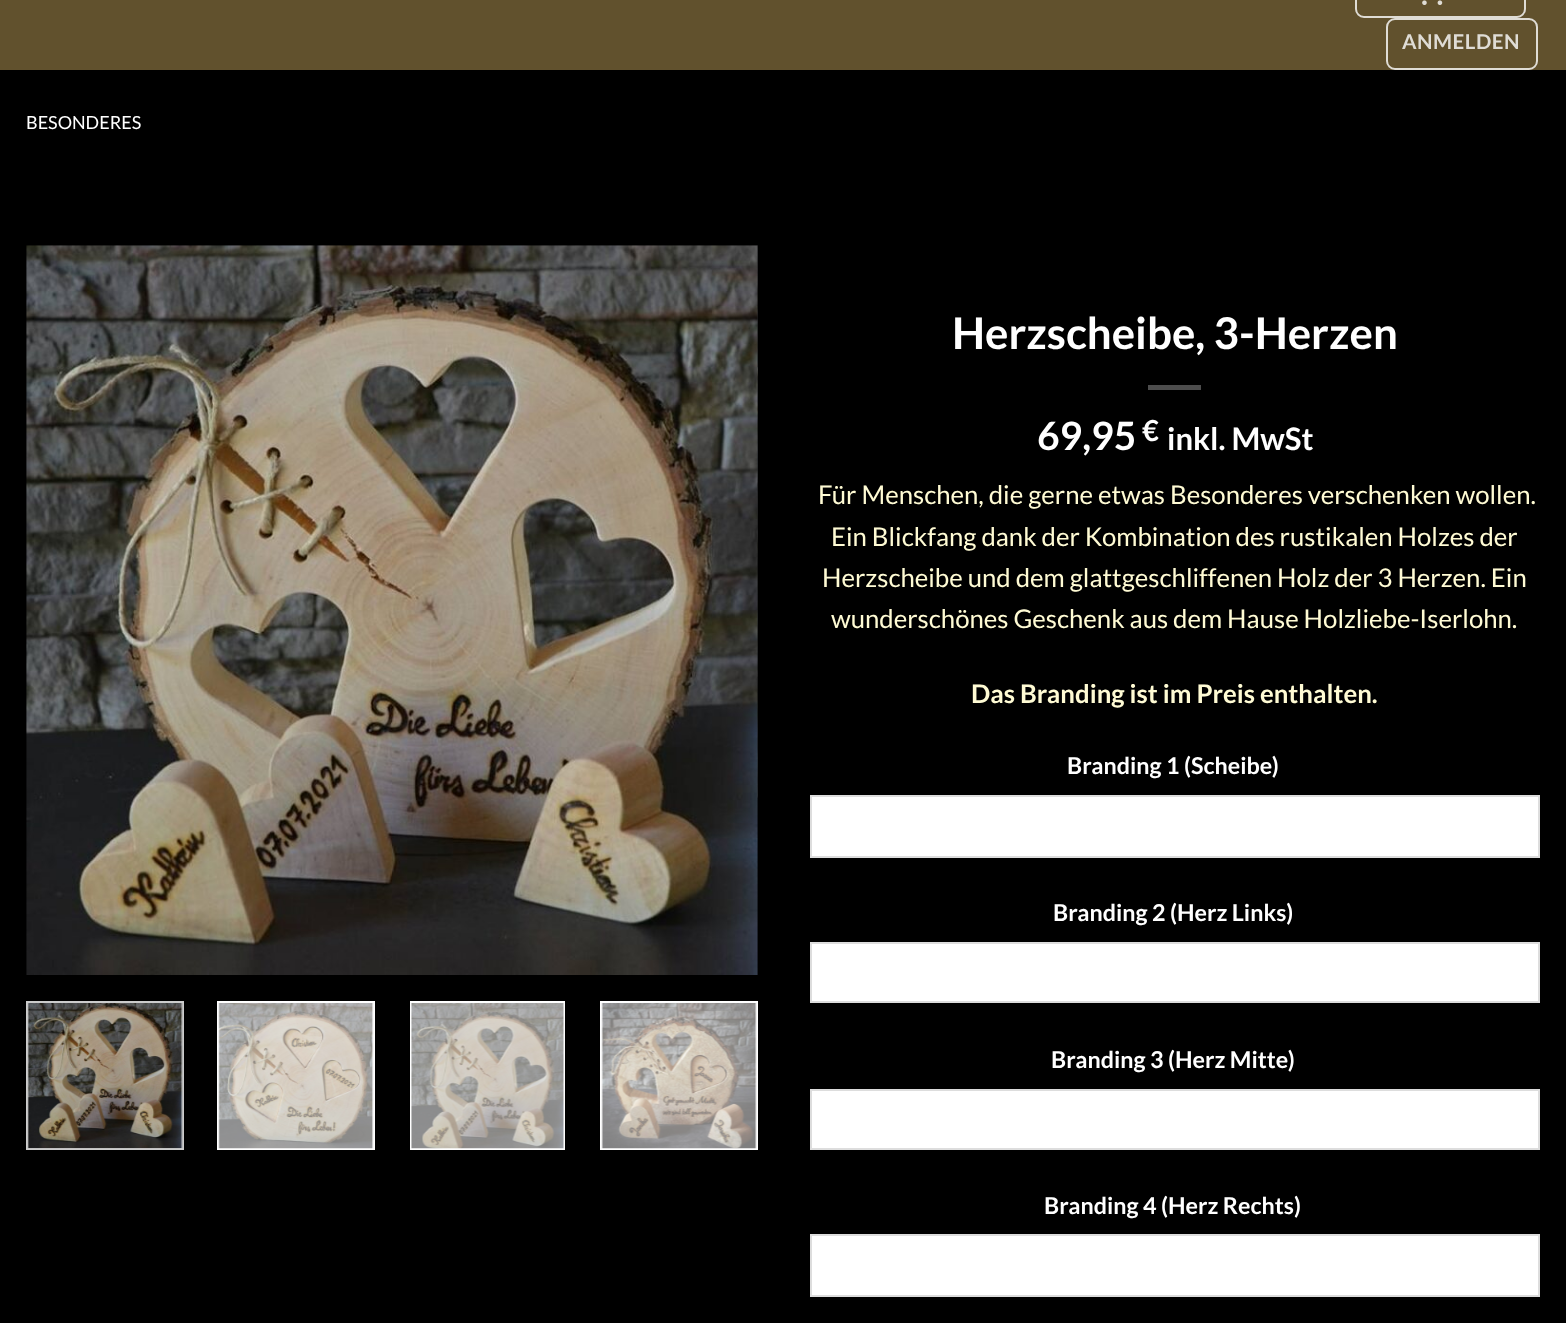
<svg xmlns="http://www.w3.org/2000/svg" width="1566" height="1323">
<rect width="100%" height="100%" fill="#000"/>
<rect width="1566" height="70" fill="#61512d"/>
<rect x="1356" y="-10" width="169" height="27" rx="8" fill="none" stroke="#dfdcd5" stroke-width="2"/>
<image x="1422" y="0" width="21" height="5" href="media/1.png"/>
<rect x="1387" y="19" width="150" height="50" rx="8" fill="none" stroke="#dfdcd5" stroke-width="2"/>
<text x="1402" y="49" style="font-family:Lato;font-size:20.5px;font-weight:bold;letter-spacing:0.5px;fill:#dfdcd5">ANMELDEN</text>
<text x="26" y="129" style="font-family:Lato;font-size:18px;fill:#fff">BESONDERES</text>
<image x="26" y="245" width="732" height="730" href="media/2.png"/>
<image x="757" y="245" width="1" height="553" href="media/3.png"/>
<rect x="27" y="1002" width="156" height="147" fill="#fff" stroke="#ccc" stroke-width="2"/>
<image x="27" y="1003" width="156" height="146" href="media/4.png"/>
<rect x="217" y="1001" width="158" height="149" fill="#fff"/>
<image x="218" y="1003" width="156" height="146" href="media/5.png"/>
<rect x="410" y="1001" width="155" height="149" fill="#fff"/>
<image x="411" y="1003" width="153" height="146" href="media/6.png"/>
<rect x="600" y="1001" width="158" height="149" fill="#fff"/>
<image x="601" y="1003" width="156" height="146" href="media/7.png"/>
<text x="952" y="349" style="font-family:Lato;font-size:43.75px;font-weight:bold;fill:#fff">Herzscheibe, 3-Herzen</text>
<rect x="1148" y="385" width="53" height="5" fill="#4d4d4d"/>
<text x="1037" y="450" style="font-family:Lato;font-size:39px;font-weight:bold;fill:#fff">69,95</text>
<text x="1142" y="441" style="font-family:Lato;font-size:29px;font-weight:bold;fill:#fff">€</text>
<text x="1167" y="450" style="font-family:Lato;font-size:31px;font-weight:bold;fill:#fff">inkl. MwSt</text>
<text x="818" y="504" style="font-family:Lato;font-size:25.75px;fill:#fffbd4">Für Menschen, die gerne etwas Besonderes verschenken wollen.</text>
<text x="831" y="546" style="font-family:Lato;font-size:25.75px;fill:#fffbd4">Ein Blickfang dank der Kombination des rustikalen Holzes der</text>
<text x="822" y="587" style="font-family:Lato;font-size:25.75px;fill:#fffbd4">Herzscheibe und dem glattgeschliffenen Holz der 3 Herzen. Ein</text>
<text x="831" y="628" style="font-family:Lato;font-size:25.75px;fill:#fffbd4">wunderschönes Geschenk aus dem Hause Holzliebe-Iserlohn.</text>
<text x="971" y="703" style="font-family:Lato;font-size:25.75px;font-weight:bold;fill:#fffbd4">Das Branding ist im Preis enthalten.</text>
<text x="1067" y="774" style="font-family:Lato;font-size:23.25px;font-weight:bold;fill:#fff">Branding 1 (Scheibe)</text>
<rect x="811" y="796" width="728" height="61" fill="#fff" stroke="#ddd" stroke-width="2"/>
<text x="1053" y="921" style="font-family:Lato;font-size:23.25px;font-weight:bold;fill:#fff">Branding 2 (Herz Links)</text>
<rect x="811" y="943" width="728" height="59" fill="#fff" stroke="#ddd" stroke-width="2"/>
<text x="1051" y="1068" style="font-family:Lato;font-size:23.25px;font-weight:bold;fill:#fff">Branding 3 (Herz Mitte)</text>
<rect x="811" y="1090" width="728" height="59" fill="#fff" stroke="#ddd" stroke-width="2"/>
<text x="1044" y="1214" style="font-family:Lato;font-size:23.25px;font-weight:bold;fill:#fff">Branding 4 (Herz Rechts)</text>
<rect x="811" y="1235" width="728" height="61" fill="#fff" stroke="#ddd" stroke-width="2"/>
</svg>
